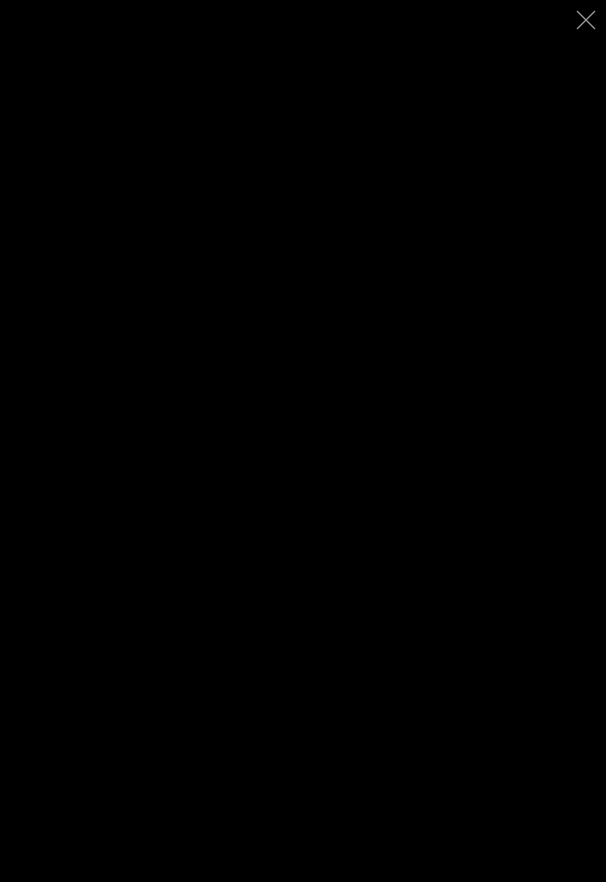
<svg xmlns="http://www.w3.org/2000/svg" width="606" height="882">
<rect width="100%" height="100%" fill="#000"/>
<path d="M577 11l18 18m0-18l-18 18" fill="none" stroke="#999" stroke-width="1.4"/>
</svg>
